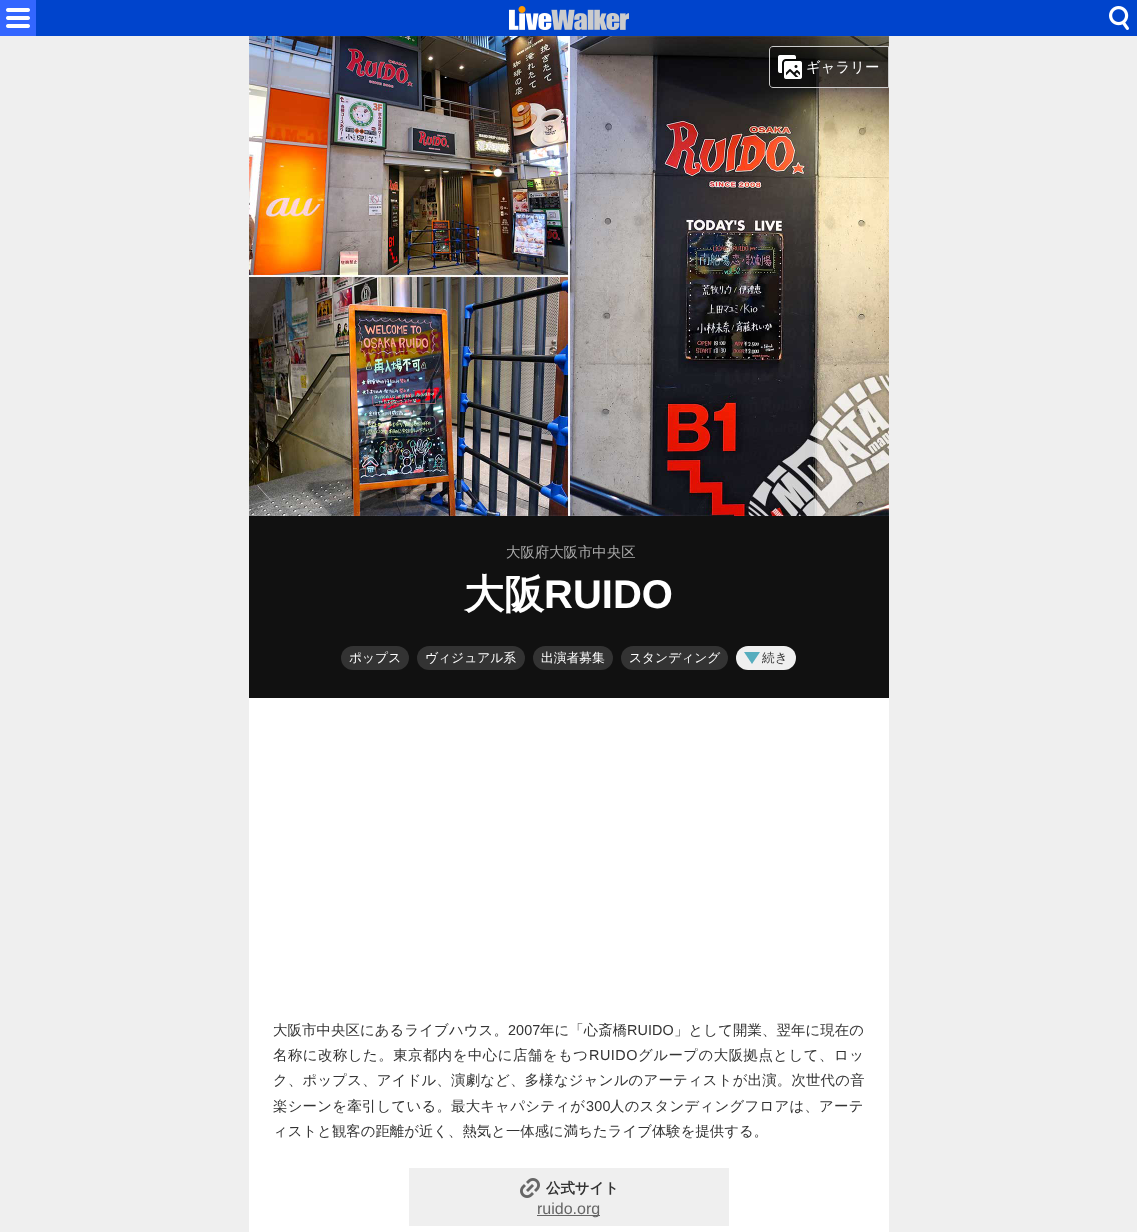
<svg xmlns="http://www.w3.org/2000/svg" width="1137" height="1232">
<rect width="100%" height="100%" fill="#efefef"/>
<rect x="36" width="1101" height="36" fill="#04c"/>
<rect width="36" height="36" fill="#36f"/>
<image x="6" y="8" width="24" height="20" href="media/1.png"/>
<image x="509" y="6" width="120" height="24" href="media/2.png"/>
<image x="1109" y="6" width="20" height="24" href="media/3.png"/>
<rect x="249" y="698" width="640" height="534" fill="#fff"/>
<image x="249" y="36" width="640" height="480" href="media/4.png"/>
<path d="M773 46.5h115.5v41h-115.5c-2 0-3.5-1.5-3.5-3.5v-34c0-2 1.5-3.5 3.5-3.5z" fill="#00000066" stroke="#ccc"/>
<image x="778" y="55" width="24" height="24" href="media/5.png"/>
<text x="806" y="72" style="font-family:WenQuanYi Zen Hei;font-size:14.4px;font-weight:500;fill:#fff">ギャラリー</text>
<rect x="249" y="516" width="640" height="182" fill="#111"/>
<text x="506" y="557" style="font-family:WenQuanYi Zen Hei;font-size:14.4px;font-weight:500;fill:#aaa">大阪府大阪市中央区</text>
<text x="464" y="608" style="font-family:WenQuanYi Zen Hei;font-size:40px;font-weight:bold;fill:#fff">大阪</text>
<text x="544" y="608" style="font-family:Liberation Sans;font-size:40px;font-weight:bold;fill:#fff">RUIDO</text>
<rect x="341" y="646" width="68" height="24" rx="12" fill="#333"/>
<text x="349" y="662" style="font-family:WenQuanYi Zen Hei;font-size:12.75px;font-weight:500;fill:#fff">ポップス</text>
<rect x="417" y="646" width="108" height="24" rx="12" fill="#333"/>
<text x="425" y="662" style="font-family:WenQuanYi Zen Hei;font-size:12.75px;font-weight:500;fill:#fff">ヴィジュアル系</text>
<rect x="533" y="646" width="80" height="24" rx="12" fill="#333"/>
<text x="541" y="662" style="font-family:WenQuanYi Zen Hei;font-size:12.75px;font-weight:500;fill:#fff">出演者募集</text>
<rect x="621" y="646" width="107" height="24" rx="12" fill="#333"/>
<text x="629" y="662" style="font-family:WenQuanYi Zen Hei;font-size:12.75px;font-weight:500;fill:#fff">スタンディング</text>
<rect x="736" y="646" width="60" height="24" rx="12" fill="#efefef"/>
<path d="M752 664l8-12h-16z" fill="#56adbe"/>
<text x="762" y="662" style="font-family:WenQuanYi Zen Hei;font-size:12.75px;font-weight:500;fill:#333">続き</text>
<text x="273" y="1035" style="font-family:WenQuanYi Zen Hei;font-size:14.4px;font-weight:500;letter-spacing:0.1px;fill:#333">大阪市中央区にあるライブハウス。</text>
<text x="508" y="1035" style="font-family:Liberation Sans;font-size:14.4px;letter-spacing:0.1px;fill:#333">2007</text>
<text x="540" y="1035" style="font-family:WenQuanYi Zen Hei;font-size:14.4px;font-weight:500;letter-spacing:0.1px;fill:#333">年に「心斎橋</text>
<text x="627" y="1035" style="font-family:Liberation Sans;font-size:14.4px;letter-spacing:0.1px;fill:#333">RUIDO</text>
<text x="674" y="1035" style="font-family:WenQuanYi Zen Hei;font-size:14.4px;font-weight:500;letter-spacing:0.1px;fill:#333">」として開業、翌年に現在の</text>
<text x="273" y="1060" style="font-family:WenQuanYi Zen Hei;font-size:14.4px;font-weight:500;letter-spacing:0.5px;fill:#333">名称に改称した。東京都内を中心に店舗をもつ</text>
<text x="589" y="1060" style="font-family:Liberation Sans;font-size:14.4px;letter-spacing:0.5px;fill:#333">RUIDO</text>
<text x="638" y="1060" style="font-family:WenQuanYi Zen Hei;font-size:14.4px;font-weight:500;letter-spacing:0.5px;fill:#333">グループの大阪拠点として、ロッ</text>
<text x="273" y="1085" style="font-family:WenQuanYi Zen Hei;font-size:14.4px;font-weight:500;letter-spacing:0.2px;fill:#333">ク、ポップス、アイドル、演劇など、多様なジャンルのアーティストが出演。次世代の音</text>
<text x="273" y="1111" style="font-family:WenQuanYi Zen Hei;font-size:14.4px;font-weight:500;letter-spacing:0.25px;fill:#333">楽シーンを牽引している。最大キャパシティが</text>
<text x="586" y="1111" style="font-family:Liberation Sans;font-size:14.4px;letter-spacing:0.25px;fill:#333">300</text>
<text x="610" y="1111" style="font-family:WenQuanYi Zen Hei;font-size:14.4px;font-weight:500;letter-spacing:0.25px;fill:#333">人のスタンディングフロアは、アーテ</text>
<text x="273" y="1136" style="font-family:WenQuanYi Zen Hei;font-size:14.4px;font-weight:500;fill:#333">ィストと観客の距離が近く、熱気と一体感に満ちたライブ体験を提供する。</text>
<rect x="409" y="1168" width="320" height="58" fill="#efefef"/>
<image x="520" y="1178" width="20" height="20" href="media/6.png"/>
<text x="546" y="1193" style="font-family:WenQuanYi Zen Hei;font-size:14.4px;font-weight:bold;fill:#333">公式サイト</text>
<rect x="537" y="1215" width="63" height="1" fill="#666"/>
<text x="537" y="1214" style="font-family:Liberation Sans;font-size:16px;fill:#666">ruido.org</text>
</svg>
